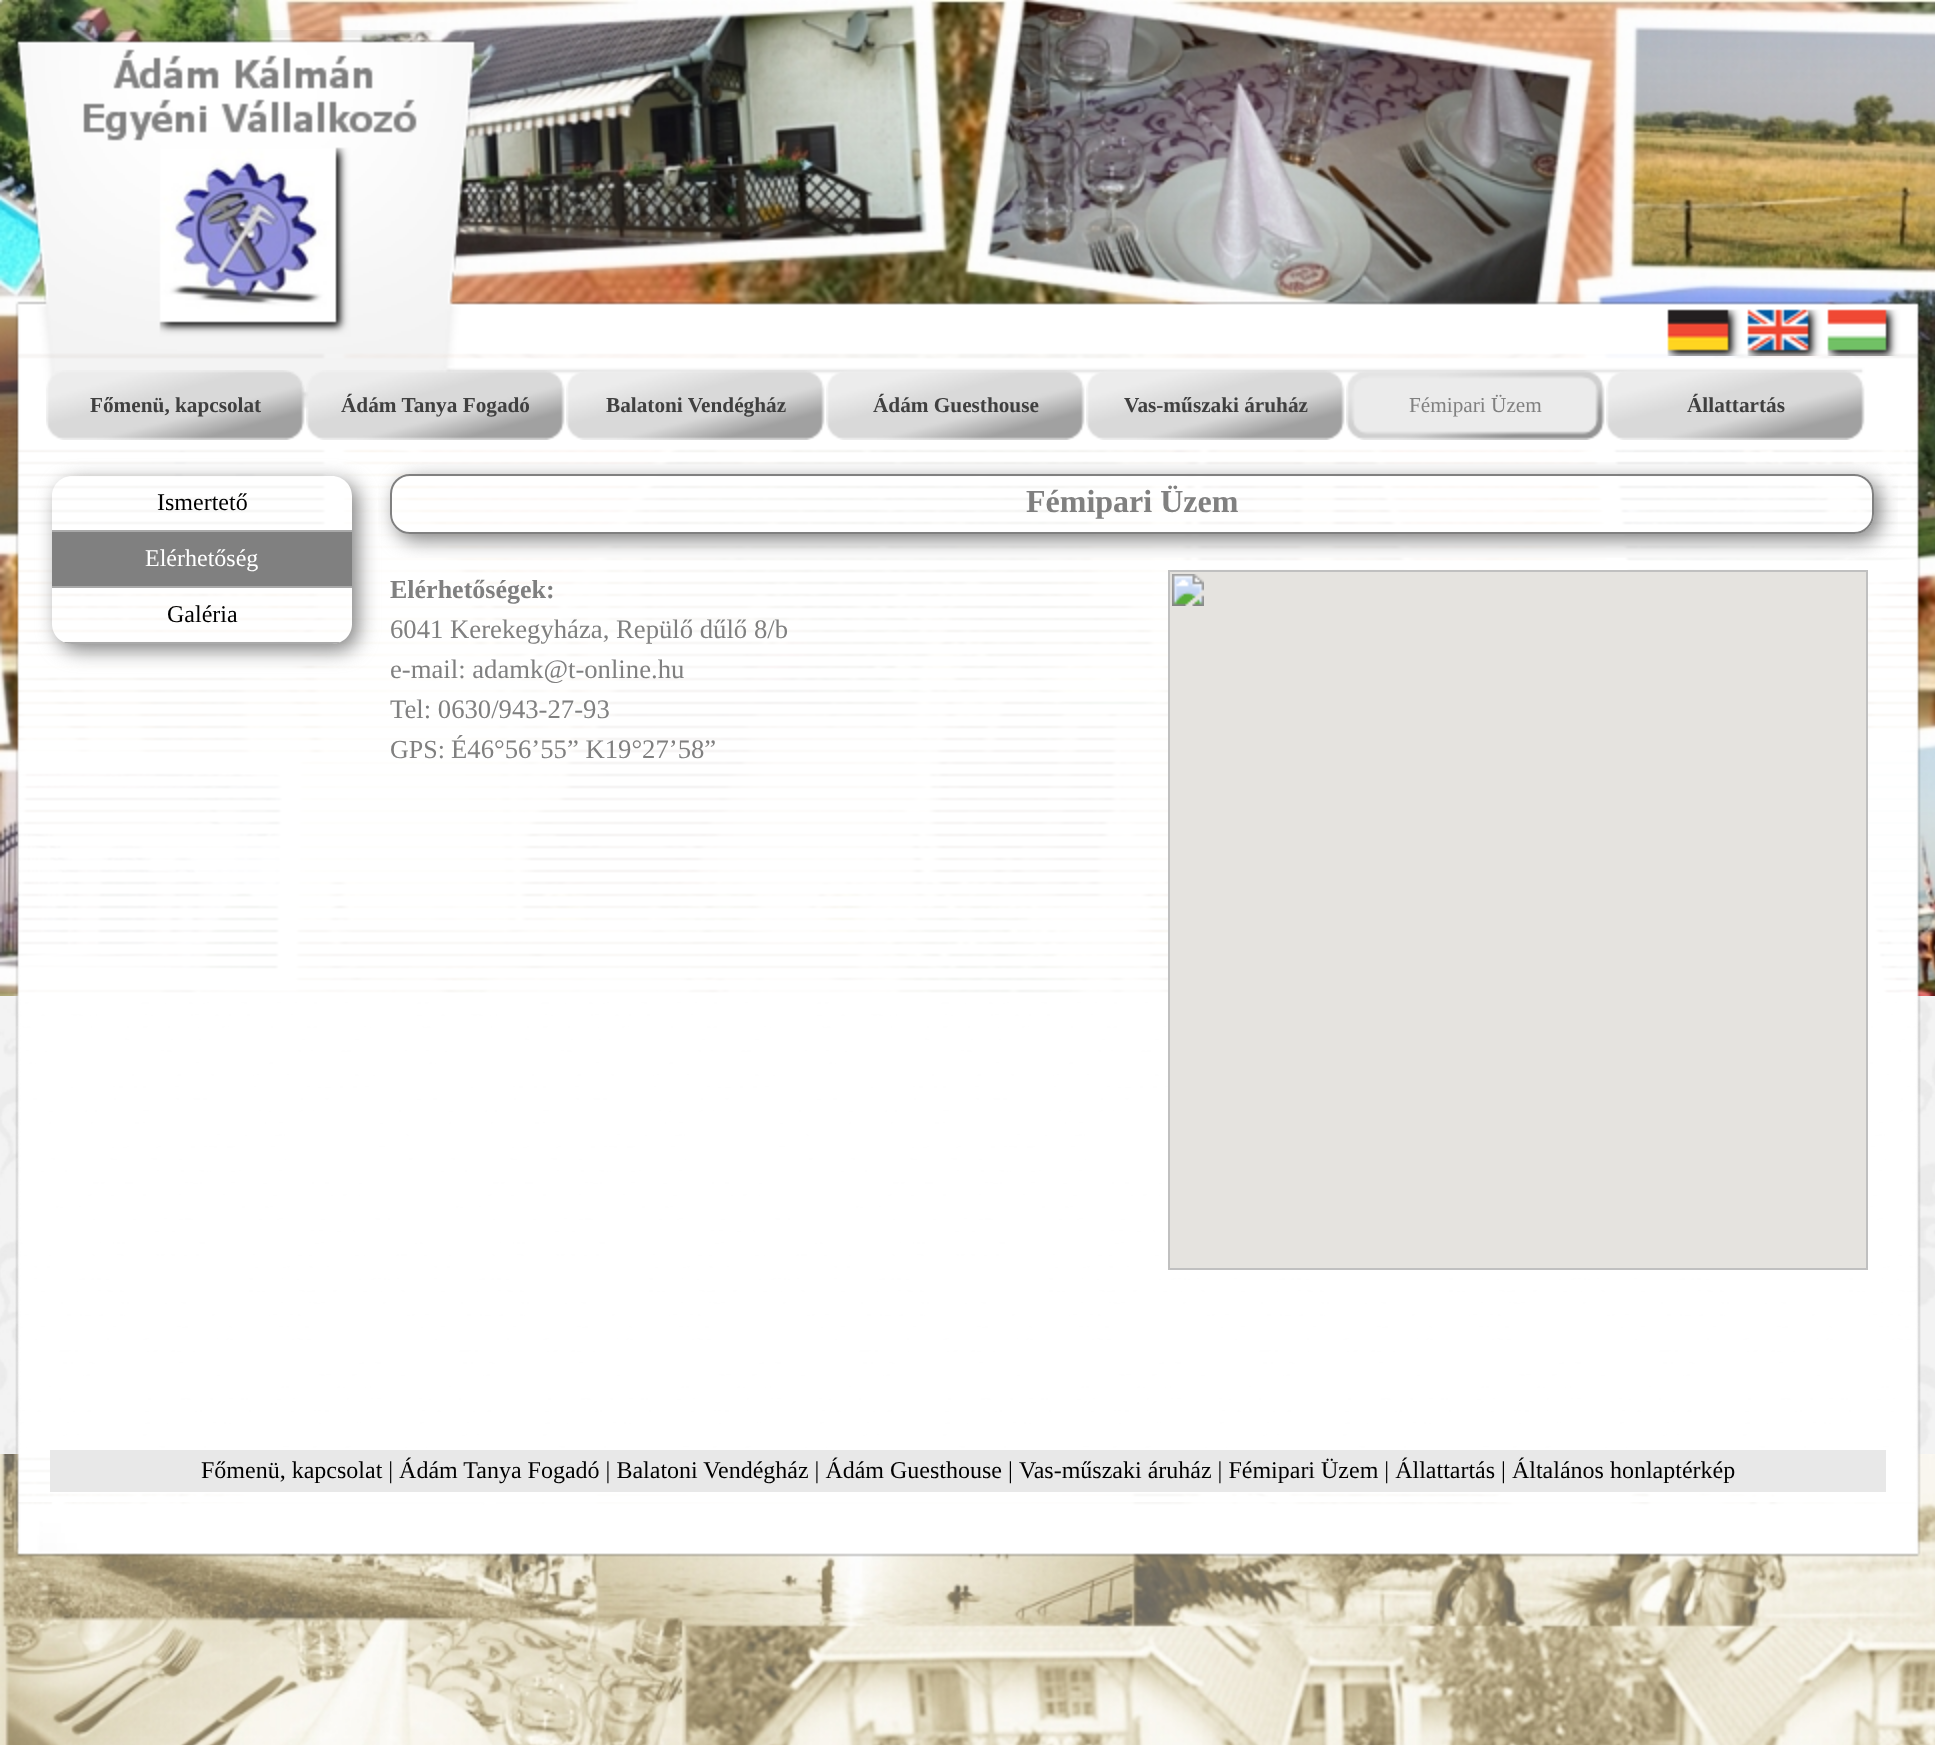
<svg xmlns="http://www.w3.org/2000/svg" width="1935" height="1745">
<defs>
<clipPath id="clip1"><path d="M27 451h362v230h-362zm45 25h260c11 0 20 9 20 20v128c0 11-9 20-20 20h-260c-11 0-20-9-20-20v-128c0-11 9-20 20-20z" clip-rule="evenodd"/></clipPath>
<clipPath id="clip2"><rect x="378" y="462" width="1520" height="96"/></clipPath>
<clipPath id="clip3"><path d="M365 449h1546v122h-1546zm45 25h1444c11 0 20 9 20 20v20c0 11-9 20-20 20h-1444c-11 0-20-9-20-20v-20c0-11 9-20 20-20z" clip-rule="evenodd"/></clipPath>
<clipPath id="clip4"><rect x="52" y="476" width="300" height="168" rx="20"/></clipPath>
</defs>
<rect width="100%" height="100%" fill="#fff"/>
<image x="0" y="996" width="1935" height="458" href="media/1.png"/>
<image x="0" y="0" width="1935" height="996" href="media/2.png"/>
<image x="15" y="30" width="1905" height="326" href="media/3.png"/>
<image x="0" y="1454" width="1935" height="291" href="media/13.png"/>
<image x="15" y="452" width="1906" height="1050" href="media/10.png"/>
<g clip-path="url(#clip1)">
<rect x="58" y="482" width="300" height="168" rx="20" fill="#808080" filter="blur(10px)"/>
</g>
<g clip-path="url(#clip2)">
<g clip-path="url(#clip3)">
<rect x="396" y="480" width="1484" height="60" rx="20" fill="#808080" filter="blur(10px)"/>
</g>
</g>
<image x="16" y="356" width="1904" height="96" href="media/4.png"/>
<image x="46" y="370" width="259" height="70" href="media/5.png"/>
<text x="90" y="412" style="font-family:Liberation Serif;font-size:21.25px;font-weight:bold;fill:#404040">Főmenü, kapcsolat</text>
<image x="306" y="370" width="259" height="70" href="media/6.png"/>
<text x="341" y="412" style="font-family:Liberation Serif;font-size:21.25px;font-weight:bold;fill:#404040">Ádám Tanya Fogadó</text>
<image x="566" y="370" width="259" height="70" href="media/7.png"/>
<text x="606" y="412" style="font-family:Liberation Serif;font-size:21.25px;font-weight:bold;fill:#404040">Balatoni Vendégház</text>
<image x="826" y="370" width="259" height="70" href="media/7.png"/>
<text x="873" y="412" style="font-family:Liberation Serif;font-size:21.25px;font-weight:bold;fill:#404040">Ádám Guesthouse</text>
<image x="1086" y="370" width="259" height="70" href="media/7.png"/>
<text x="1124" y="412" style="font-family:Liberation Serif;font-size:21.25px;font-weight:bold;fill:#404040">Vas-műszaki áruház</text>
<image x="1346" y="370" width="259" height="70" href="media/8.png"/>
<text x="1409" y="412" style="font-family:Liberation Serif;font-size:21.25px;fill:#808080">Fémipari Üzem</text>
<image x="1606" y="370" width="259" height="70" href="media/9.png"/>
<text x="1687" y="412" style="font-family:Liberation Serif;font-size:21.25px;font-weight:bold;fill:#404040">Állattartás</text>
<rect x="52" y="530" width="300" height="2" fill="#a9a9a9"/>
<text x="157" y="510" style="font-family:Liberation Serif;font-size:24px;fill:#000">Ismertető</text>
<rect x="52" y="532" width="300" height="54" fill="#808080"/>
<rect x="52" y="586" width="300" height="2" fill="#a9a9a9"/>
<text x="145" y="566" style="font-family:Liberation Serif;font-size:24px;fill:#fff">Elérhetőség</text>
<g clip-path="url(#clip4)">
<rect x="63" y="642" width="278" height="2" fill="#a9a9a9"/>
</g>
<text x="167" y="622" style="font-family:Liberation Serif;font-size:24px;fill:#000">Galéria</text>
<rect x="391" y="475" width="1482" height="58" rx="19" fill="none" stroke="#808080" stroke-width="2"/>
<text x="1026" y="512" style="font-family:Liberation Serif;font-size:32px;font-weight:bold;fill:#808080">Fémipari Üzem</text>
<text x="390" y="598" style="font-family:Liberation Serif;font-size:26px;font-weight:bold;fill:#808080">Elérhetőségek:</text>
<text x="390" y="638" style="font-family:Liberation Serif;font-size:26.7px;fill:#808080">6041 Kerekegyháza, Repülő dűlő 8/b</text>
<text x="390" y="678" style="font-family:Liberation Serif;font-size:26.7px;fill:#808080">e-mail: adamk@t-online.hu</text>
<text x="390" y="718" style="font-family:Liberation Serif;font-size:26.7px;fill:#808080">Tel: 0630/943-27-93</text>
<text x="390" y="758" style="font-family:Liberation Serif;font-size:26px;fill:#808080">GPS:</text>
<text x="451" y="758" style="font-family:Liberation Serif;font-size:26.7px;fill:#808080">É46°56’55” K19°27’58”</text>
<image x="1168" y="570" width="700" height="700" href="media/11.png"/>
<rect x="50" y="1450" width="1836" height="42" fill="#e8e8e8"/>
<text x="201" y="1478" style="font-family:Liberation Serif;font-size:24px;fill:#000">Főmenü, kapcsolat | Ádám Tanya Fogadó | Balatoni Vendégház | Ádám Guesthouse |</text>
<text x="1019" y="1478" style="font-family:Liberation Serif;font-size:24px;fill:#000">Vas-műszaki áruház | Fémipari Üzem | Állattartás | Általános honlaptérkép</text>
<image x="15" y="1502" width="1906" height="58" href="media/12.png"/>
</svg>
